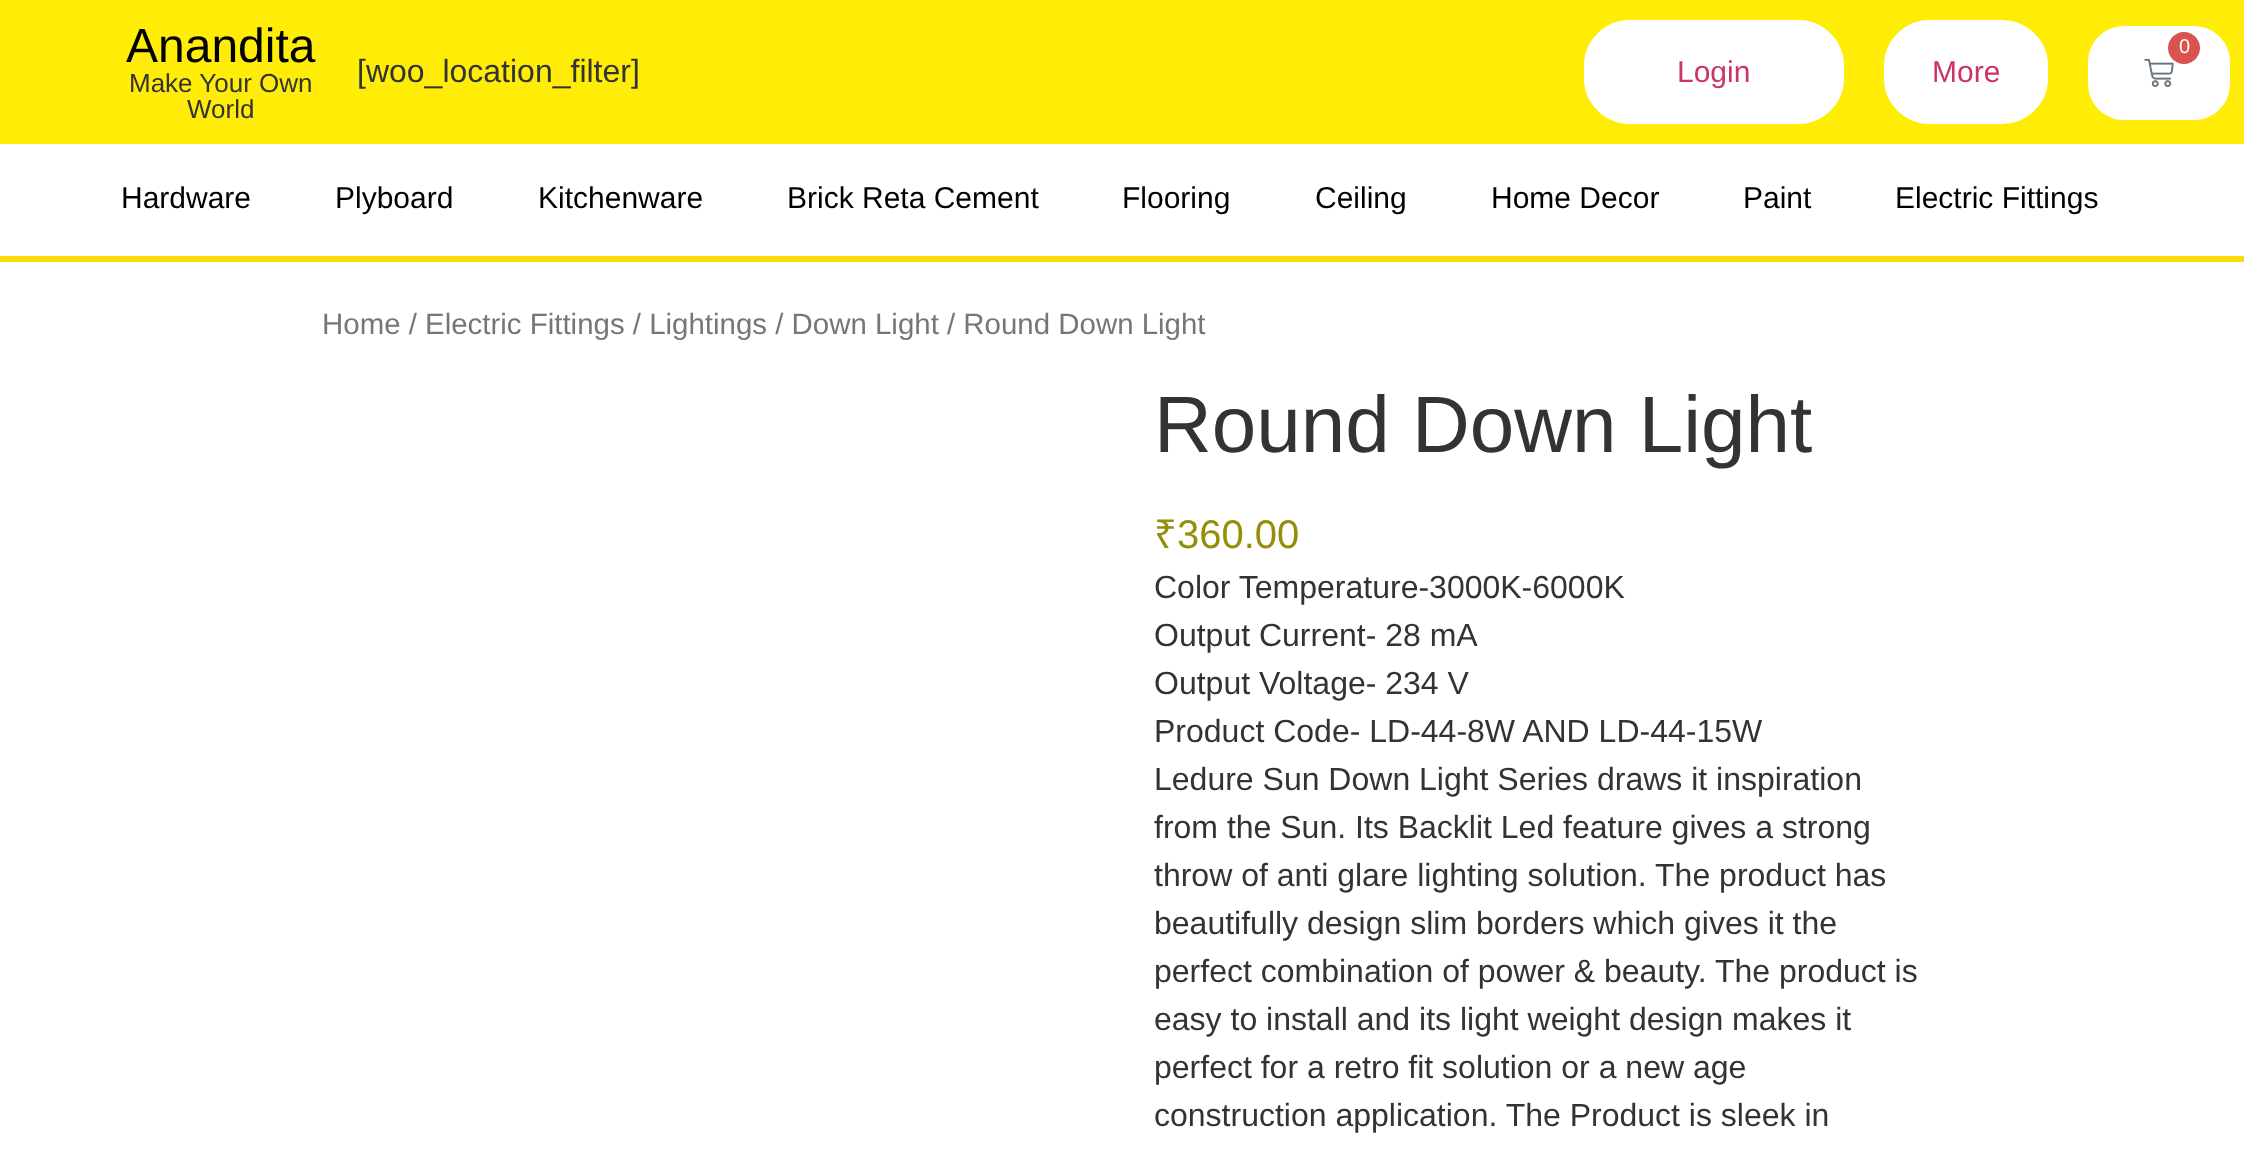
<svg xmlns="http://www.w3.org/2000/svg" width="2244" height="1157">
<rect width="100%" height="100%" fill="#fff"/>
<rect width="2244" height="144" fill="#ffed07"/>
<text x="126" y="62" style="font-family:Liberation Sans;font-size:48px;fill:#000">Anandita</text>
<text x="129" y="92" style="font-family:Liberation Sans;font-size:26px;fill:#333">Make Your Own</text>
<text x="187" y="118" style="font-family:Liberation Sans;font-size:26px;fill:#333">World</text>
<rect x="2092" y="30" width="134" height="86" rx="32" fill="#fff" stroke="#fff" stroke-width="8"/>
<image x="2144" y="58" width="30" height="29" href="media/1.png"/>
<circle cx="2184" cy="48" r="16" fill="#d9534f"/>
<text x="2179" y="53" style="font-family:Liberation Sans;font-size:20px;fill:#fff">0</text>
<text x="357" y="82" style="font-family:Liberation Sans;font-size:32px;fill:#333">[woo_location_filter]</text>
<rect x="1587" y="23" width="254" height="98" rx="43" fill="#fff" stroke="#fff" stroke-width="6"/>
<text x="1677" y="82" style="font-family:Liberation Sans;font-size:30px;fill:#c36">Login</text>
<rect x="1887" y="23" width="158" height="98" rx="43" fill="#fff" stroke="#fff" stroke-width="6"/>
<text x="1932" y="82" style="font-family:Liberation Sans;font-size:30px;fill:#c36">More</text>
<rect y="256" width="2244" height="6" fill="#fbdc04"/>
<text x="121" y="208" style="font-family:Liberation Sans;font-size:30px;fill:#000">Hardware</text>
<text x="335" y="208" style="font-family:Liberation Sans;font-size:30px;fill:#000">Plyboard</text>
<text x="538" y="208" style="font-family:Liberation Sans;font-size:30px;fill:#000">Kitchenware</text>
<text x="787" y="208" style="font-family:Liberation Sans;font-size:30px;fill:#000">Brick Reta Cement</text>
<text x="1122" y="208" style="font-family:Liberation Sans;font-size:30px;fill:#000">Flooring</text>
<text x="1315" y="208" style="font-family:Liberation Sans;font-size:30px;fill:#000">Ceiling</text>
<text x="1491" y="208" style="font-family:Liberation Sans;font-size:30px;fill:#000">Home Decor</text>
<text x="1743" y="208" style="font-family:Liberation Sans;font-size:30px;fill:#000">Paint</text>
<text x="1895" y="208" style="font-family:Liberation Sans;font-size:30px;fill:#000">Electric Fittings</text>
<text x="322" y="334" style="font-family:Liberation Sans;font-size:29.45px;fill:#767676">Home / Electric Fittings / Lightings / Down Light / Round Down Light</text>
<text x="1154" y="452" style="font-family:Liberation Sans;font-size:80px;fill:#333">Round Down Light</text>
<text x="1154" y="548" style="font-family:Noto Sans;font-size:40px;fill:#958e09">₹</text>
<text x="1177" y="548" style="font-family:Liberation Sans;font-size:40px;fill:#958e09">360.00</text>
<text x="1154" y="598" style="font-family:Liberation Sans;font-size:32px;fill:#333">Color Temperature-3000K-6000K</text>
<text x="1154" y="646" style="font-family:Liberation Sans;font-size:32px;fill:#333">Output Current- 28 mA</text>
<text x="1154" y="694" style="font-family:Liberation Sans;font-size:32px;fill:#333">Output Voltage- 234 V</text>
<text x="1154" y="742" style="font-family:Liberation Sans;font-size:32px;fill:#333">Product Code- LD-44-8W AND LD-44-15W</text>
<text x="1154" y="790" style="font-family:Liberation Sans;font-size:32px;fill:#333">Ledure Sun Down Light Series draws it inspiration</text>
<text x="1154" y="838" style="font-family:Liberation Sans;font-size:32px;fill:#333">from the Sun. Its Backlit Led feature gives a strong</text>
<text x="1154" y="886" style="font-family:Liberation Sans;font-size:32px;fill:#333">throw of anti glare lighting solution. The product has</text>
<text x="1154" y="934" style="font-family:Liberation Sans;font-size:32px;fill:#333">beautifully design slim borders which gives it the</text>
<text x="1154" y="982" style="font-family:Liberation Sans;font-size:32px;fill:#333">perfect combination of power &amp; beauty. The product is</text>
<text x="1154" y="1030" style="font-family:Liberation Sans;font-size:32px;fill:#333">easy to install and its light weight design makes it</text>
<text x="1154" y="1078" style="font-family:Liberation Sans;font-size:32px;fill:#333">perfect for a retro fit solution or a new age</text>
<text x="1154" y="1126" style="font-family:Liberation Sans;font-size:32px;fill:#333">construction application. The Product is sleek in</text>
</svg>
